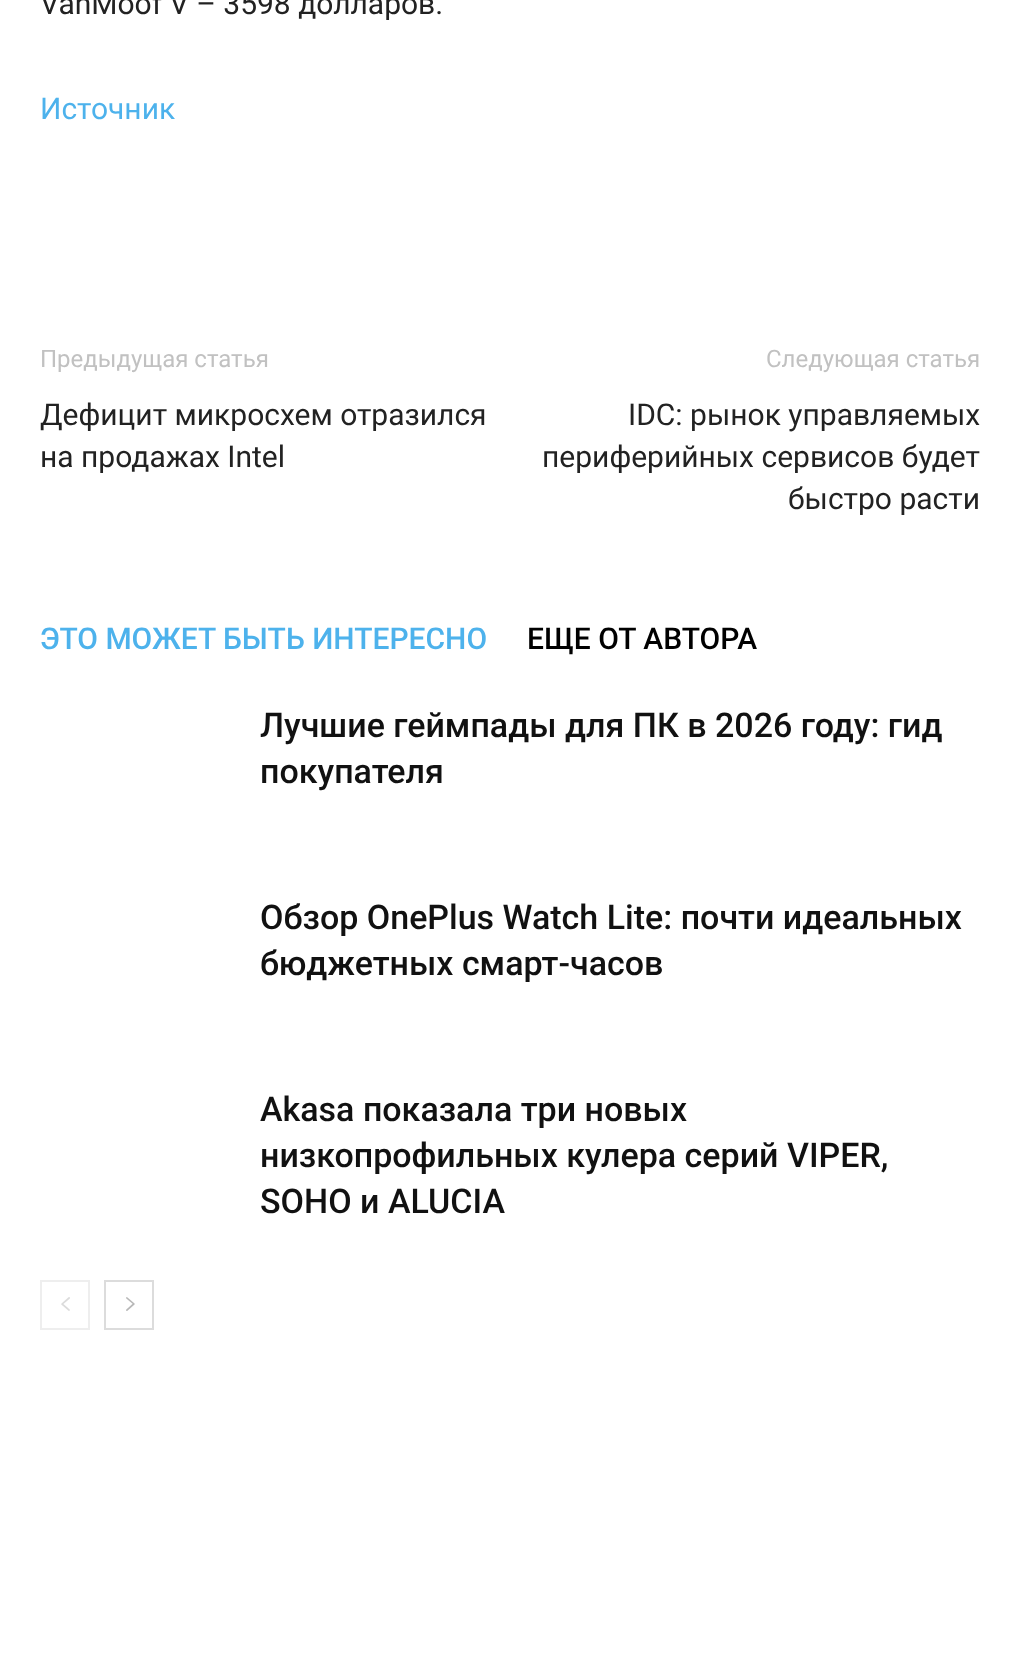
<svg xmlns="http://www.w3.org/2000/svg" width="1019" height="1657">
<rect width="100%" height="100%" fill="#fff"/>
<text x="40" y="14" style="font-family:Roboto;font-size:30px;fill:#222">VanMoof V – 3598 долларов.</text>
<text x="40" y="119" style="font-family:Roboto;font-size:30px;fill:#4db2ec">Источник</text>
<text x="40" y="367" style="font-family:Roboto;font-size:24px;fill:#c1c1c1">Предыдущая статья</text>
<text x="40" y="425" style="font-family:Roboto;font-size:30px;fill:#222">Дефицит микросхем отразился</text>
<text x="40" y="467" style="font-family:Roboto;font-size:30px;fill:#222">на продажах Intel</text>
<text x="766" y="367" style="font-family:Roboto;font-size:24px;fill:#c1c1c1">Следующая статья</text>
<text x="628" y="425" style="font-family:Roboto;font-size:30px;fill:#222">IDC: рынок управляемых</text>
<text x="542" y="467" style="font-family:Roboto;font-size:30px;fill:#222">периферийных сервисов будет</text>
<text x="788" y="509" style="font-family:Roboto;font-size:30px;fill:#222">быстро расти</text>
<text x="40" y="649" style="font-family:Roboto;font-size:30px;font-weight:500;fill:#4db2ec">ЭТО МОЖЕТ БЫТЬ ИНТЕРЕСНО</text>
<text x="527" y="649" style="font-family:Roboto;font-size:30px;font-weight:500;fill:#000">ЕЩЕ ОТ АВТОРА</text>
<text x="260" y="737" style="font-family:Roboto;font-size:34px;font-weight:500;fill:#111">Лучшие геймпады для ПК в 2026 году: гид</text>
<text x="260" y="783" style="font-family:Roboto;font-size:34px;font-weight:500;fill:#111">покупателя</text>
<text x="260" y="929" style="font-family:Roboto;font-size:34px;font-weight:500;fill:#111">Обзор OnePlus Watch Lite: почти идеальных</text>
<text x="260" y="975" style="font-family:Roboto;font-size:34px;font-weight:500;fill:#111">бюджетных смарт-часов</text>
<text x="260" y="1121" style="font-family:Roboto;font-size:34px;font-weight:500;fill:#111">Akasa показала три новых</text>
<text x="260" y="1167" style="font-family:Roboto;font-size:34px;font-weight:500;fill:#111">низкопрофильных кулера серий VIPER,</text>
<text x="260" y="1213" style="font-family:Roboto;font-size:34px;font-weight:500;fill:#111">SOHO и ALUCIA</text>
<rect x="41" y="1281" width="48" height="48" fill="none" stroke="#eee" stroke-width="2"/>
<image x="61" y="1297" width="9" height="14" href="media/1.png"/>
<rect x="105" y="1281" width="48" height="48" fill="none" stroke="#dcdcdc" stroke-width="2"/>
<image x="126" y="1297" width="9" height="14" href="media/2.png"/>
</svg>
